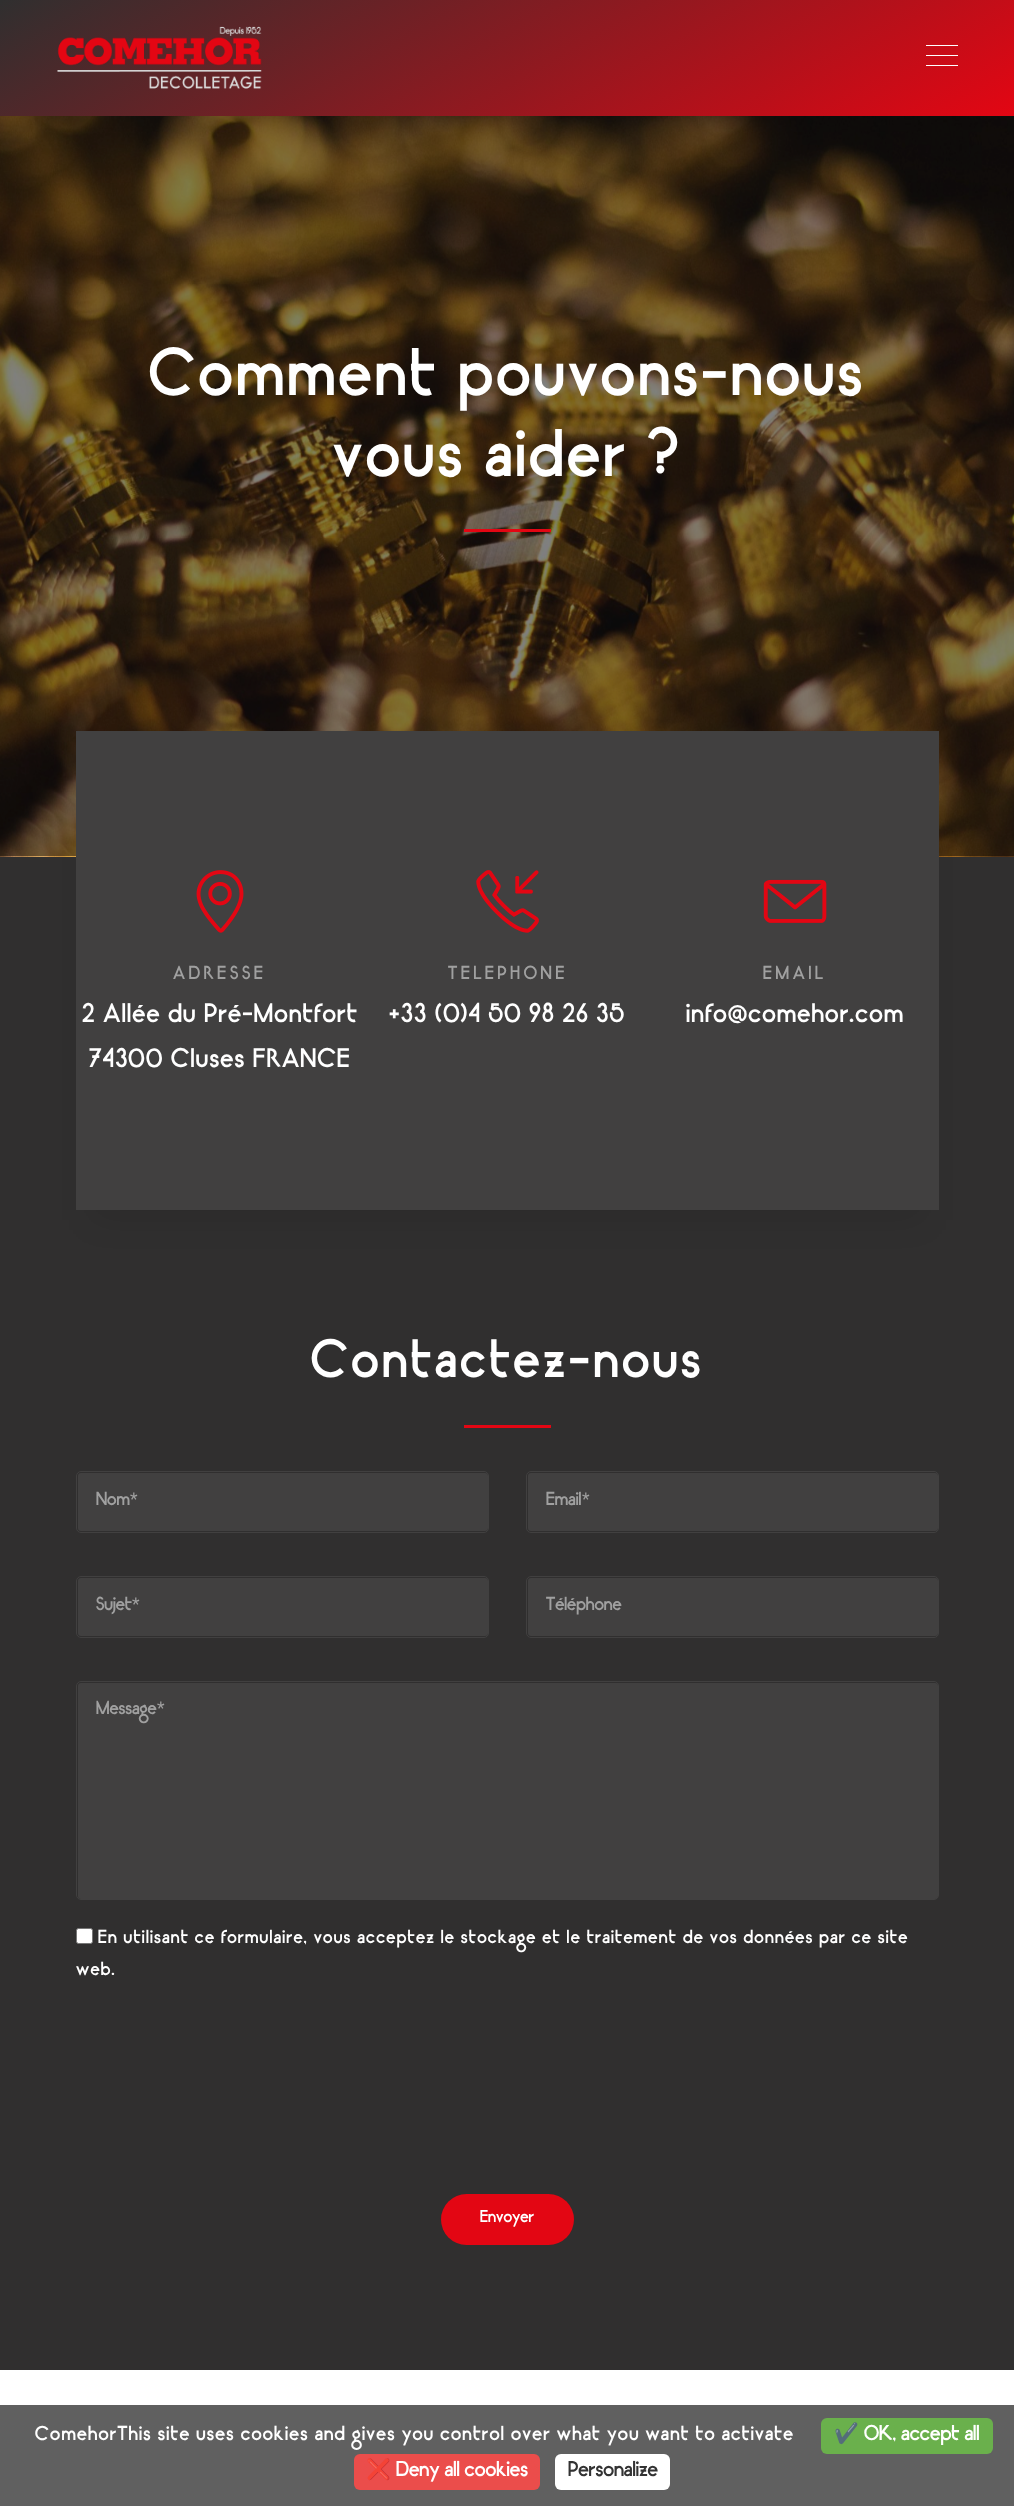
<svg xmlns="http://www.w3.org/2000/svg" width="1014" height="2506">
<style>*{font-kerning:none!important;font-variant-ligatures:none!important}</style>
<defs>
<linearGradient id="g1" gradientUnits="userSpaceOnUse" x1="355" y1="-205" x2="660" y2="321"><stop offset="0" stop-color="#302f2f"/><stop offset="1" stop-color="#e30613"/></linearGradient>
</defs>
<rect width="100%" height="100%" fill="#fff"/>
<rect width="1014" height="116" fill="url(#g1)"/>
<image x="57" y="26" width="205" height="63" href="media/1.png"/>
<rect x="926" y="45" width="32" height="1" fill="#fff"/>
<rect x="926" y="55" width="32" height="1" fill="#fff"/>
<rect x="926" y="65" width="32" height="1" fill="#fff"/>
<rect y="857" width="1014" height="1513" fill="#302f2f"/>
<rect x="91" y="771" width="833" height="449" fill="#00000017" filter="blur(15.5px)"/>
<image x="0" y="116" width="1014" height="741" href="media/2.png"/>
<text x="149" y="395" style="font-family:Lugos;font-size:62.5px;letter-spacing:3.75px;fill:#fff">Comment pouvons-nous</text>
<text x="333" y="476" style="font-family:Lugos;font-size:62.5px;letter-spacing:3.75px;fill:#fff">vous aider ?</text>
<rect x="464" y="529" width="87" height="3" fill="#e30613"/>
<rect x="76" y="731" width="863" height="479" fill="#414040"/>
<image x="196" y="870" width="48" height="63" href="media/3.png"/>
<text x="173" y="979" style="font-family:Lugos;font-size:17.5px;letter-spacing:3.75px;fill:#a0a0a0">ADRESSE</text>
<text x="82" y="1022" style="font-family:Lugos;font-size:25px;letter-spacing:1.25px;fill:#fff">2 Allée du Pré-Montfort</text>
<text x="89" y="1067" style="font-family:Lugos;font-size:25px;letter-spacing:1.25px;fill:#fff">74300 Cluses FRANCE</text>
<image x="476" y="870" width="63" height="63" href="media/4.png"/>
<text x="448" y="979" style="font-family:Lugos;font-size:17.5px;letter-spacing:3.75px;fill:#a0a0a0">TELEPHONE</text>
<text x="389" y="1022" style="font-family:Lugos;font-size:25px;letter-spacing:1.25px;fill:#fff">+33 (0)4 50 98 26 35</text>
<image x="763" y="879" width="64" height="44" href="media/5.png"/>
<text x="763" y="979" style="font-family:Lugos;font-size:17.5px;letter-spacing:3.75px;fill:#a0a0a0">EMAIL</text>
<text x="686" y="1022" style="font-family:Lugos;font-size:25px;letter-spacing:1.25px;fill:#fff">info@comehor.com</text>
<text x="311" y="1377" style="font-family:Lugos;font-size:50px;letter-spacing:3.75px;fill:#fff">Contactez-nous</text>
<rect x="464" y="1425" width="87" height="3" fill="#e30613"/>
<rect x="78" y="1473" width="410" height="58" rx="3" fill="#414040"/>
<rect x="76.5" y="1471.5" width="412" height="61" rx="4.5" fill="none" stroke="#414040"/>
<text x="96" y="1505" style="font-family:Lugos;font-size:17.5px;fill:#a0a0a0">Nom</text>
<text x="130" y="1505" style="font-family:Roboto;font-size:17.5px;fill:#a0a0a0">*</text>
<rect x="528" y="1473" width="410" height="58" rx="3" fill="#414040"/>
<rect x="526.5" y="1471.5" width="412" height="61" rx="4.5" fill="none" stroke="#414040"/>
<text x="546" y="1505" style="font-family:Lugos;font-size:17.5px;fill:#a0a0a0">Email</text>
<text x="582" y="1505" style="font-family:Roboto;font-size:17.5px;fill:#a0a0a0">*</text>
<rect x="78" y="1578" width="410" height="58" rx="3" fill="#414040"/>
<rect x="76.5" y="1576.5" width="412" height="61" rx="4.5" fill="none" stroke="#414040"/>
<text x="96" y="1610" style="font-family:Lugos;font-size:17.5px;fill:#a0a0a0">Sujet</text>
<text x="132" y="1610" style="font-family:Roboto;font-size:17.5px;fill:#a0a0a0">*</text>
<rect x="528" y="1578" width="410" height="58" rx="3" fill="#414040"/>
<rect x="526.5" y="1576.5" width="412" height="61" rx="4.5" fill="none" stroke="#414040"/>
<text x="546" y="1610" style="font-family:Lugos;font-size:17.5px;fill:#a0a0a0">Téléphone</text>
<rect x="78" y="1683" width="860" height="216" rx="3" fill="#414040"/>
<rect x="76.5" y="1681.5" width="862" height="218" rx="4.5" fill="none" stroke="#414040"/>
<text x="96" y="1714" style="font-family:Lugos;font-size:17.5px;fill:#a0a0a0">Message</text>
<text x="157" y="1714" style="font-family:Roboto;font-size:17.5px;fill:#a0a0a0">*</text>
<rect x="76.5" y="1928.5" width="16" height="15" rx="2" fill="#fff" stroke="#767676"/>
<text x="98" y="1943" style="font-family:Lugos;font-size:17.5px;letter-spacing:1.25px;fill:#fff">En utilisant ce formulaire, vous acceptez le stockage et le traitement</text>
<text x="683" y="1943" style="font-family:Lugos;font-size:17.5px;letter-spacing:1.25px;fill:#fff">de vos données par ce site</text>
<text x="76" y="1975" style="font-family:Lugos;font-size:17.5px;letter-spacing:1.25px;fill:#fff">web.</text>
<rect x="441" y="2194" width="133" height="51" rx="25.5" fill="#e30613"/>
<text x="480" y="2222" style="font-family:Lugos;font-size:16px;fill:#fff">Envoyer</text>
<rect y="2405" width="1014" height="101" fill="#606060"/>
<text x="35" y="2440" style="font-family:Lugos;font-size:18.75px;letter-spacing:1.25px;fill:#fff">ComehorThis site uses cookies and gives you control</text>
<text x="511" y="2440" style="font-family:Lugos;font-size:18.75px;letter-spacing:1.25px;fill:#fff">over what you want to activate</text>
<rect x="821" y="2418" width="172" height="36" rx="6" fill="#6ab04c"/>
<text x="834" y="2440" style="font-family:Noto Color Emoji;font-size:20px;fill:#fff">✔️</text>
<text x="864" y="2440" style="font-family:Lugos;font-size:20px;fill:#fff">OK, accept all</text>
<rect x="354" y="2454" width="186" height="36" rx="6" fill="#eb4d4b"/>
<text x="366" y="2476" style="font-family:Noto Color Emoji;font-size:20px;fill:#fff">❌</text>
<text x="396" y="2476" style="font-family:Lugos;font-size:20px;fill:#fff">Deny all cookies</text>
<rect x="555" y="2454" width="115" height="36" rx="6" fill="#fff"/>
<text x="568" y="2476" style="font-family:Lugos;font-size:20px;fill:#333">Personalize</text>
</svg>
